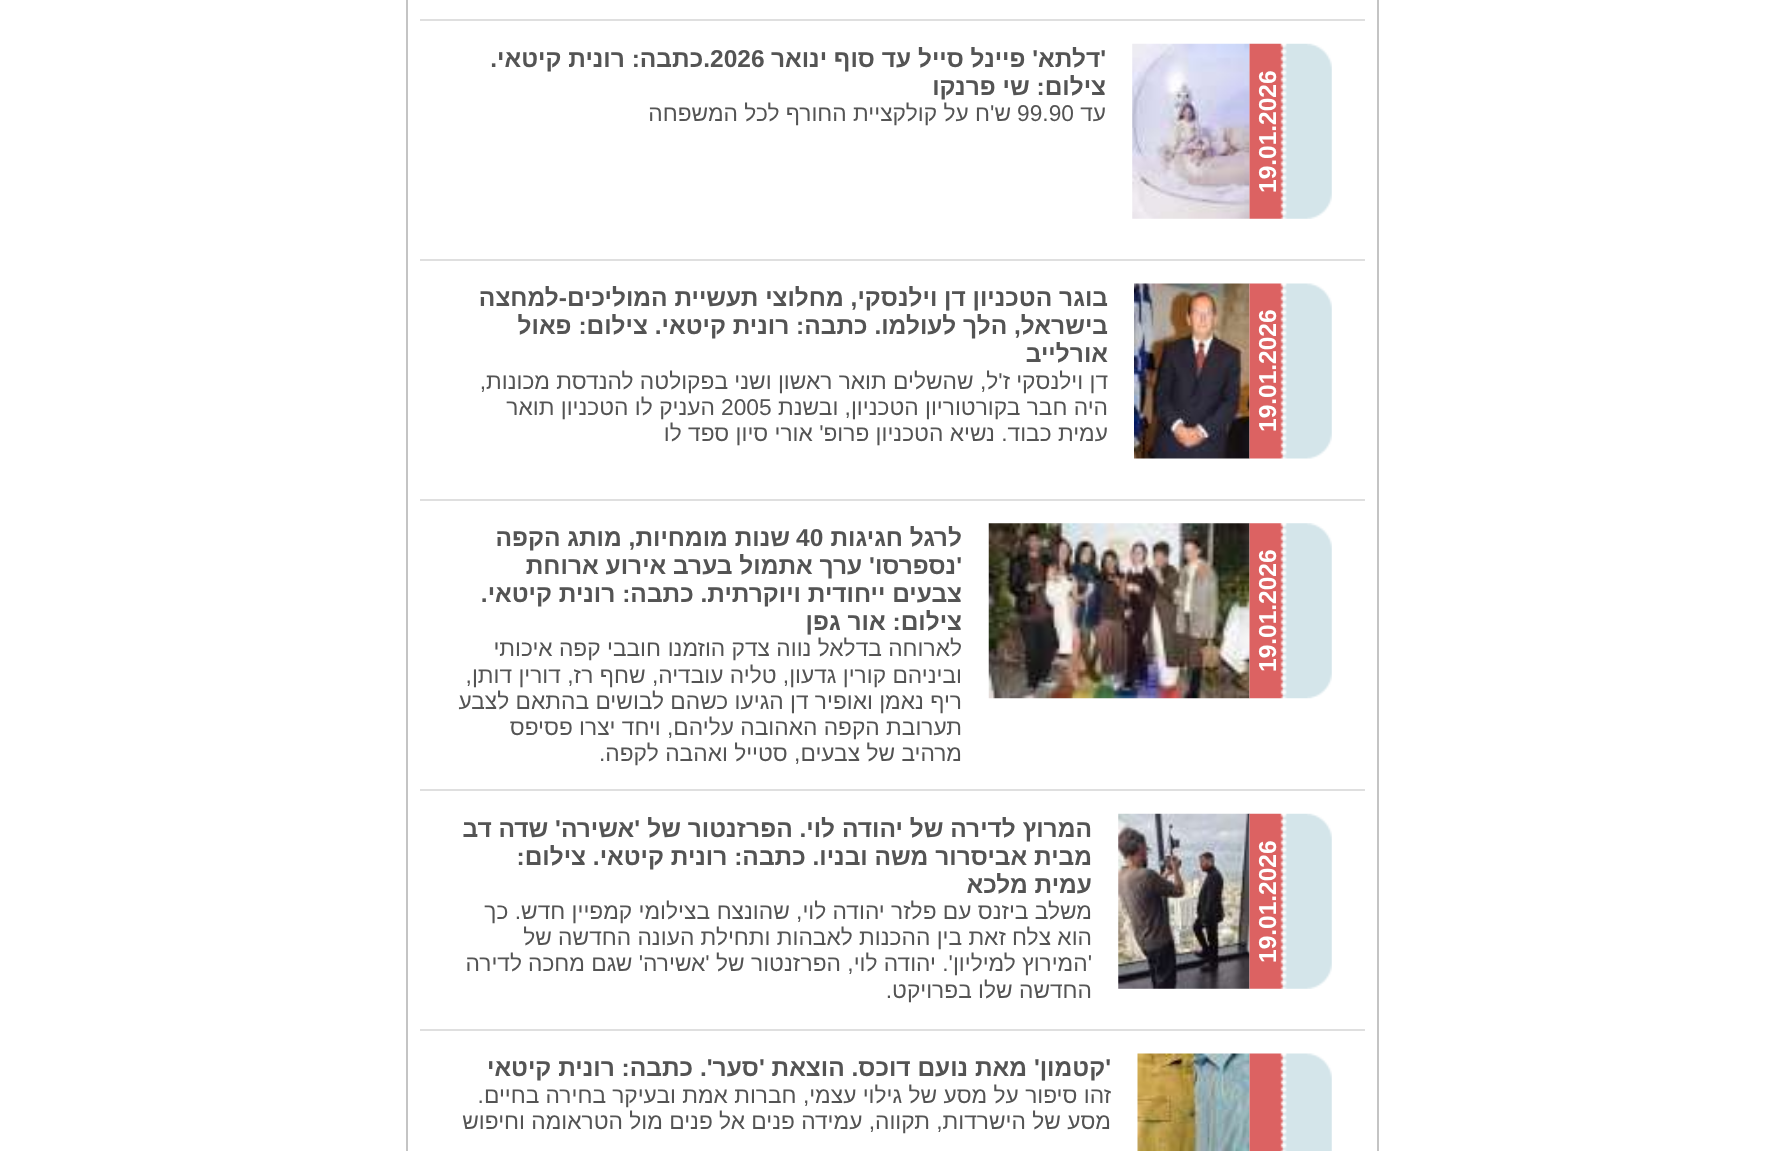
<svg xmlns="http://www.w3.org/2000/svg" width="1788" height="1151">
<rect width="100%" height="100%" fill="#fff"/>
<rect x="1377" width="2" height="1151" fill="#c4c4c4"/>
<rect x="406" width="2" height="1151" fill="#c4c4c4"/>
<rect x="420" y="19" width="945" height="2" fill="#dfdfdf"/>
<image x="1132" y="43" width="118" height="176" href="media/1.png"/>
<text x="1106" y="67" style="font-family:Liberation Sans;font-size:24.5px;font-weight:bold;direction:rtl;fill:#545454">'דלתא' פיינל סייל עד סוף ינואר</text>
<text x="710" y="67" style="font-family:Liberation Sans;font-size:24.5px;font-weight:bold;fill:#545454">2026</text>
<text x="710" y="67" style="font-family:Liberation Sans;font-size:24.5px;font-weight:bold;direction:rtl;fill:#545454">.כתבה: רונית קיטאי.</text>
<image x="1249" y="43" width="83" height="176" href="media/2.png"/>
<text x="1276" y="193" transform="rotate(-90 1276 193)" style="font-family:Liberation Sans;font-size:24.5px;font-weight:bold;fill:#fff">19.01.2026</text>
<text x="1106" y="95" style="font-family:Liberation Sans;font-size:24.5px;font-weight:bold;direction:rtl;fill:#545454">צילום: שי פרנקו</text>
<text x="1106" y="121" style="font-family:Liberation Sans;font-size:22.75px;direction:rtl;fill:#545454">עד</text>
<text x="1017" y="121" style="font-family:Liberation Sans;font-size:22.75px;fill:#545454">99.90</text>
<text x="1011" y="121" style="font-family:Liberation Sans;font-size:22.75px;direction:rtl;fill:#545454">ש'ח על קולקציית החורף לכל המשפחה</text>
<rect x="420" y="259" width="945" height="2" fill="#dfdfdf"/>
<image x="1134" y="283" width="116" height="176" href="media/3.png"/>
<text x="1108" y="306" style="font-family:Liberation Sans;font-size:24.5px;font-weight:bold;direction:rtl;fill:#545454">בוגר הטכניון דן וילנסקי, מחלוצי תעשיית המוליכים-למחצה</text>
<image x="1249" y="283" width="83" height="176" href="media/4.png"/>
<text x="1276" y="432" transform="rotate(-90 1276 432)" style="font-family:Liberation Sans;font-size:24.5px;font-weight:bold;fill:#fff">19.01.2026</text>
<text x="1108" y="334" style="font-family:Liberation Sans;font-size:24.5px;font-weight:bold;direction:rtl;fill:#545454">בישראל, הלך לעולמו. כתבה: רונית קיטאי. צילום: פאול</text>
<text x="1108" y="362" style="font-family:Liberation Sans;font-size:24.5px;font-weight:bold;direction:rtl;fill:#545454">אורלייב</text>
<text x="1108" y="389" style="font-family:Liberation Sans;font-size:22.75px;direction:rtl;fill:#545454">דן וילנסקי</text>
<text x="1010" y="389" style="font-family:Liberation Sans;font-size:22.75px;direction:rtl;fill:#545454">ז'ל, שהשלים תואר ראשון ושני בפקולטה להנדסת מכונות,</text>
<text x="1108" y="415" style="font-family:Liberation Sans;font-size:22.75px;direction:rtl;fill:#545454">היה חבר בקורטוריון הטכניון, ובשנת</text>
<text x="721" y="415" style="font-family:Liberation Sans;font-size:22.75px;fill:#545454">2005</text>
<text x="715" y="415" style="font-family:Liberation Sans;font-size:22.75px;direction:rtl;fill:#545454">העניק לו הטכניון תואר</text>
<text x="1108" y="441" style="font-family:Liberation Sans;font-size:22.75px;direction:rtl;fill:#545454">עמית כבוד. נשיא הטכניון פרופ' אורי סיון ספד לו</text>
<rect x="420" y="499" width="945" height="2" fill="#dfdfdf"/>
<image x="988" y="523" width="262" height="176" href="media/5.png"/>
<text x="962" y="546" style="font-family:Liberation Sans;font-size:24.5px;font-weight:bold;direction:rtl;fill:#545454">לרגל חגיגות</text>
<text x="796" y="546" style="font-family:Liberation Sans;font-size:24.5px;font-weight:bold;fill:#545454">40</text>
<text x="790" y="546" style="font-family:Liberation Sans;font-size:24.5px;font-weight:bold;direction:rtl;fill:#545454">שנות מומחיות, מותג הקפה</text>
<image x="1249" y="523" width="83" height="176" href="media/6.png"/>
<text x="1276" y="672" transform="rotate(-90 1276 672)" style="font-family:Liberation Sans;font-size:24.5px;font-weight:bold;fill:#fff">19.01.2026</text>
<text x="962" y="574" style="font-family:Liberation Sans;font-size:24.5px;font-weight:bold;direction:rtl;fill:#545454">'נספרסו' ערך אתמול בערב אירוע ארוחת</text>
<text x="962" y="602" style="font-family:Liberation Sans;font-size:24.5px;font-weight:bold;direction:rtl;fill:#545454">צבעים ייחודית ויוקרתית. כתבה: רונית קיטאי.</text>
<text x="962" y="630" style="font-family:Liberation Sans;font-size:24.5px;font-weight:bold;direction:rtl;fill:#545454">צילום: אור גפן</text>
<text x="962" y="656" style="font-family:Liberation Sans;font-size:22.75px;direction:rtl;fill:#545454">לארוחה בדלאל נווה צדק הוזמנו</text>
<text x="661" y="656" style="font-family:Liberation Sans;font-size:22.75px;direction:rtl;fill:#545454">חובבי קפה איכותי</text>
<text x="962" y="683" style="font-family:Liberation Sans;font-size:22.75px;direction:rtl;fill:#545454">וביניהם קורין גדעון, טליה עובדיה, שחף רז, דורין דותן,</text>
<text x="962" y="709" style="font-family:Liberation Sans;font-size:22.75px;direction:rtl;fill:#545454">ריף נאמן ואופיר דן הגיעו כשהם לבושים בהתאם לצבע</text>
<text x="962" y="735" style="font-family:Liberation Sans;font-size:22.75px;direction:rtl;fill:#545454">תערובת הקפה האהובה עליהם, ויחד יצרו פסיפס</text>
<text x="962" y="761" style="font-family:Liberation Sans;font-size:22.75px;direction:rtl;fill:#545454">מרהיב של צבעים, סטייל ואהבה לקפה.</text>
<rect x="420" y="789" width="945" height="2" fill="#dfdfdf"/>
<image x="1118" y="813" width="132" height="176" href="media/7.png"/>
<text x="1092" y="837" style="font-family:Liberation Sans;font-size:24.5px;font-weight:bold;direction:rtl;fill:#545454">המרוץ לדירה של יהודה לוי. הפרזנטור של</text>
<text x="640" y="837" style="font-family:Liberation Sans;font-size:24.5px;font-weight:bold;direction:rtl;fill:#545454">'אשירה' שדה דב</text>
<image x="1249" y="813" width="83" height="176" href="media/8.png"/>
<text x="1276" y="963" transform="rotate(-90 1276 963)" style="font-family:Liberation Sans;font-size:24.5px;font-weight:bold;fill:#fff">19.01.2026</text>
<text x="1092" y="865" style="font-family:Liberation Sans;font-size:24.5px;font-weight:bold;direction:rtl;fill:#545454">מבית אביסרור משה ובניו. כתבה: רונית קיטאי. צילום:</text>
<text x="1092" y="893" style="font-family:Liberation Sans;font-size:24.5px;font-weight:bold;direction:rtl;fill:#545454">עמית מלכא</text>
<text x="1092" y="919" style="font-family:Liberation Sans;font-size:22.75px;direction:rtl;fill:#545454">משלב ביזנס עם פלזר יהודה לוי, שהונצח</text>
<text x="710" y="919" style="font-family:Liberation Sans;font-size:22.75px;direction:rtl;fill:#545454">בצילומי קמפיין חדש. כך</text>
<text x="1092" y="945" style="font-family:Liberation Sans;font-size:22.75px;direction:rtl;fill:#545454">הוא צלח זאת בין ההכנות לאבהות ותחילת העונה החדשה של</text>
<text x="1092" y="971" style="font-family:Liberation Sans;font-size:22.75px;direction:rtl;fill:#545454">'המירוץ למיליון'.</text>
<text x="936" y="971" style="font-family:Liberation Sans;font-size:22.75px;direction:rtl;fill:#545454">יהודה לוי, הפרזנטור של 'אשירה' שגם מחכה</text>
<text x="522" y="971" style="font-family:Liberation Sans;font-size:22.75px;direction:rtl;fill:#545454">לדירה</text>
<text x="1092" y="998" style="font-family:Liberation Sans;font-size:22.75px;direction:rtl;fill:#545454">החדשה שלו בפרויקט.</text>
<rect x="420" y="1029" width="945" height="2" fill="#dfdfdf"/>
<image x="1137" y="1053" width="113" height="98" href="media/10.png"/>
<image x="1249" y="1053" width="83" height="98" href="media/9.png"/>
<text x="1111" y="1076" style="font-family:Liberation Sans;font-size:24.5px;font-weight:bold;direction:rtl;fill:#545454">'קטמון' מאת נועם דוכס. הוצאת 'סער'. כתבה: רונית קיטאי</text>
<text x="1111" y="1103" style="font-family:Liberation Sans;font-size:22.75px;direction:rtl;fill:#545454">זהו סיפור על מסע של גילוי עצמי, חברות אמת ובעיקר</text>
<text x="606" y="1103" style="font-family:Liberation Sans;font-size:22.75px;direction:rtl;fill:#545454">בחירה בחיים.</text>
<text x="1111" y="1129" style="font-family:Liberation Sans;font-size:22.75px;direction:rtl;fill:#545454">מסע של הישרדות, תקווה, עמידה פנים אל פנים מול הטראומה וחיפוש</text>
</svg>
